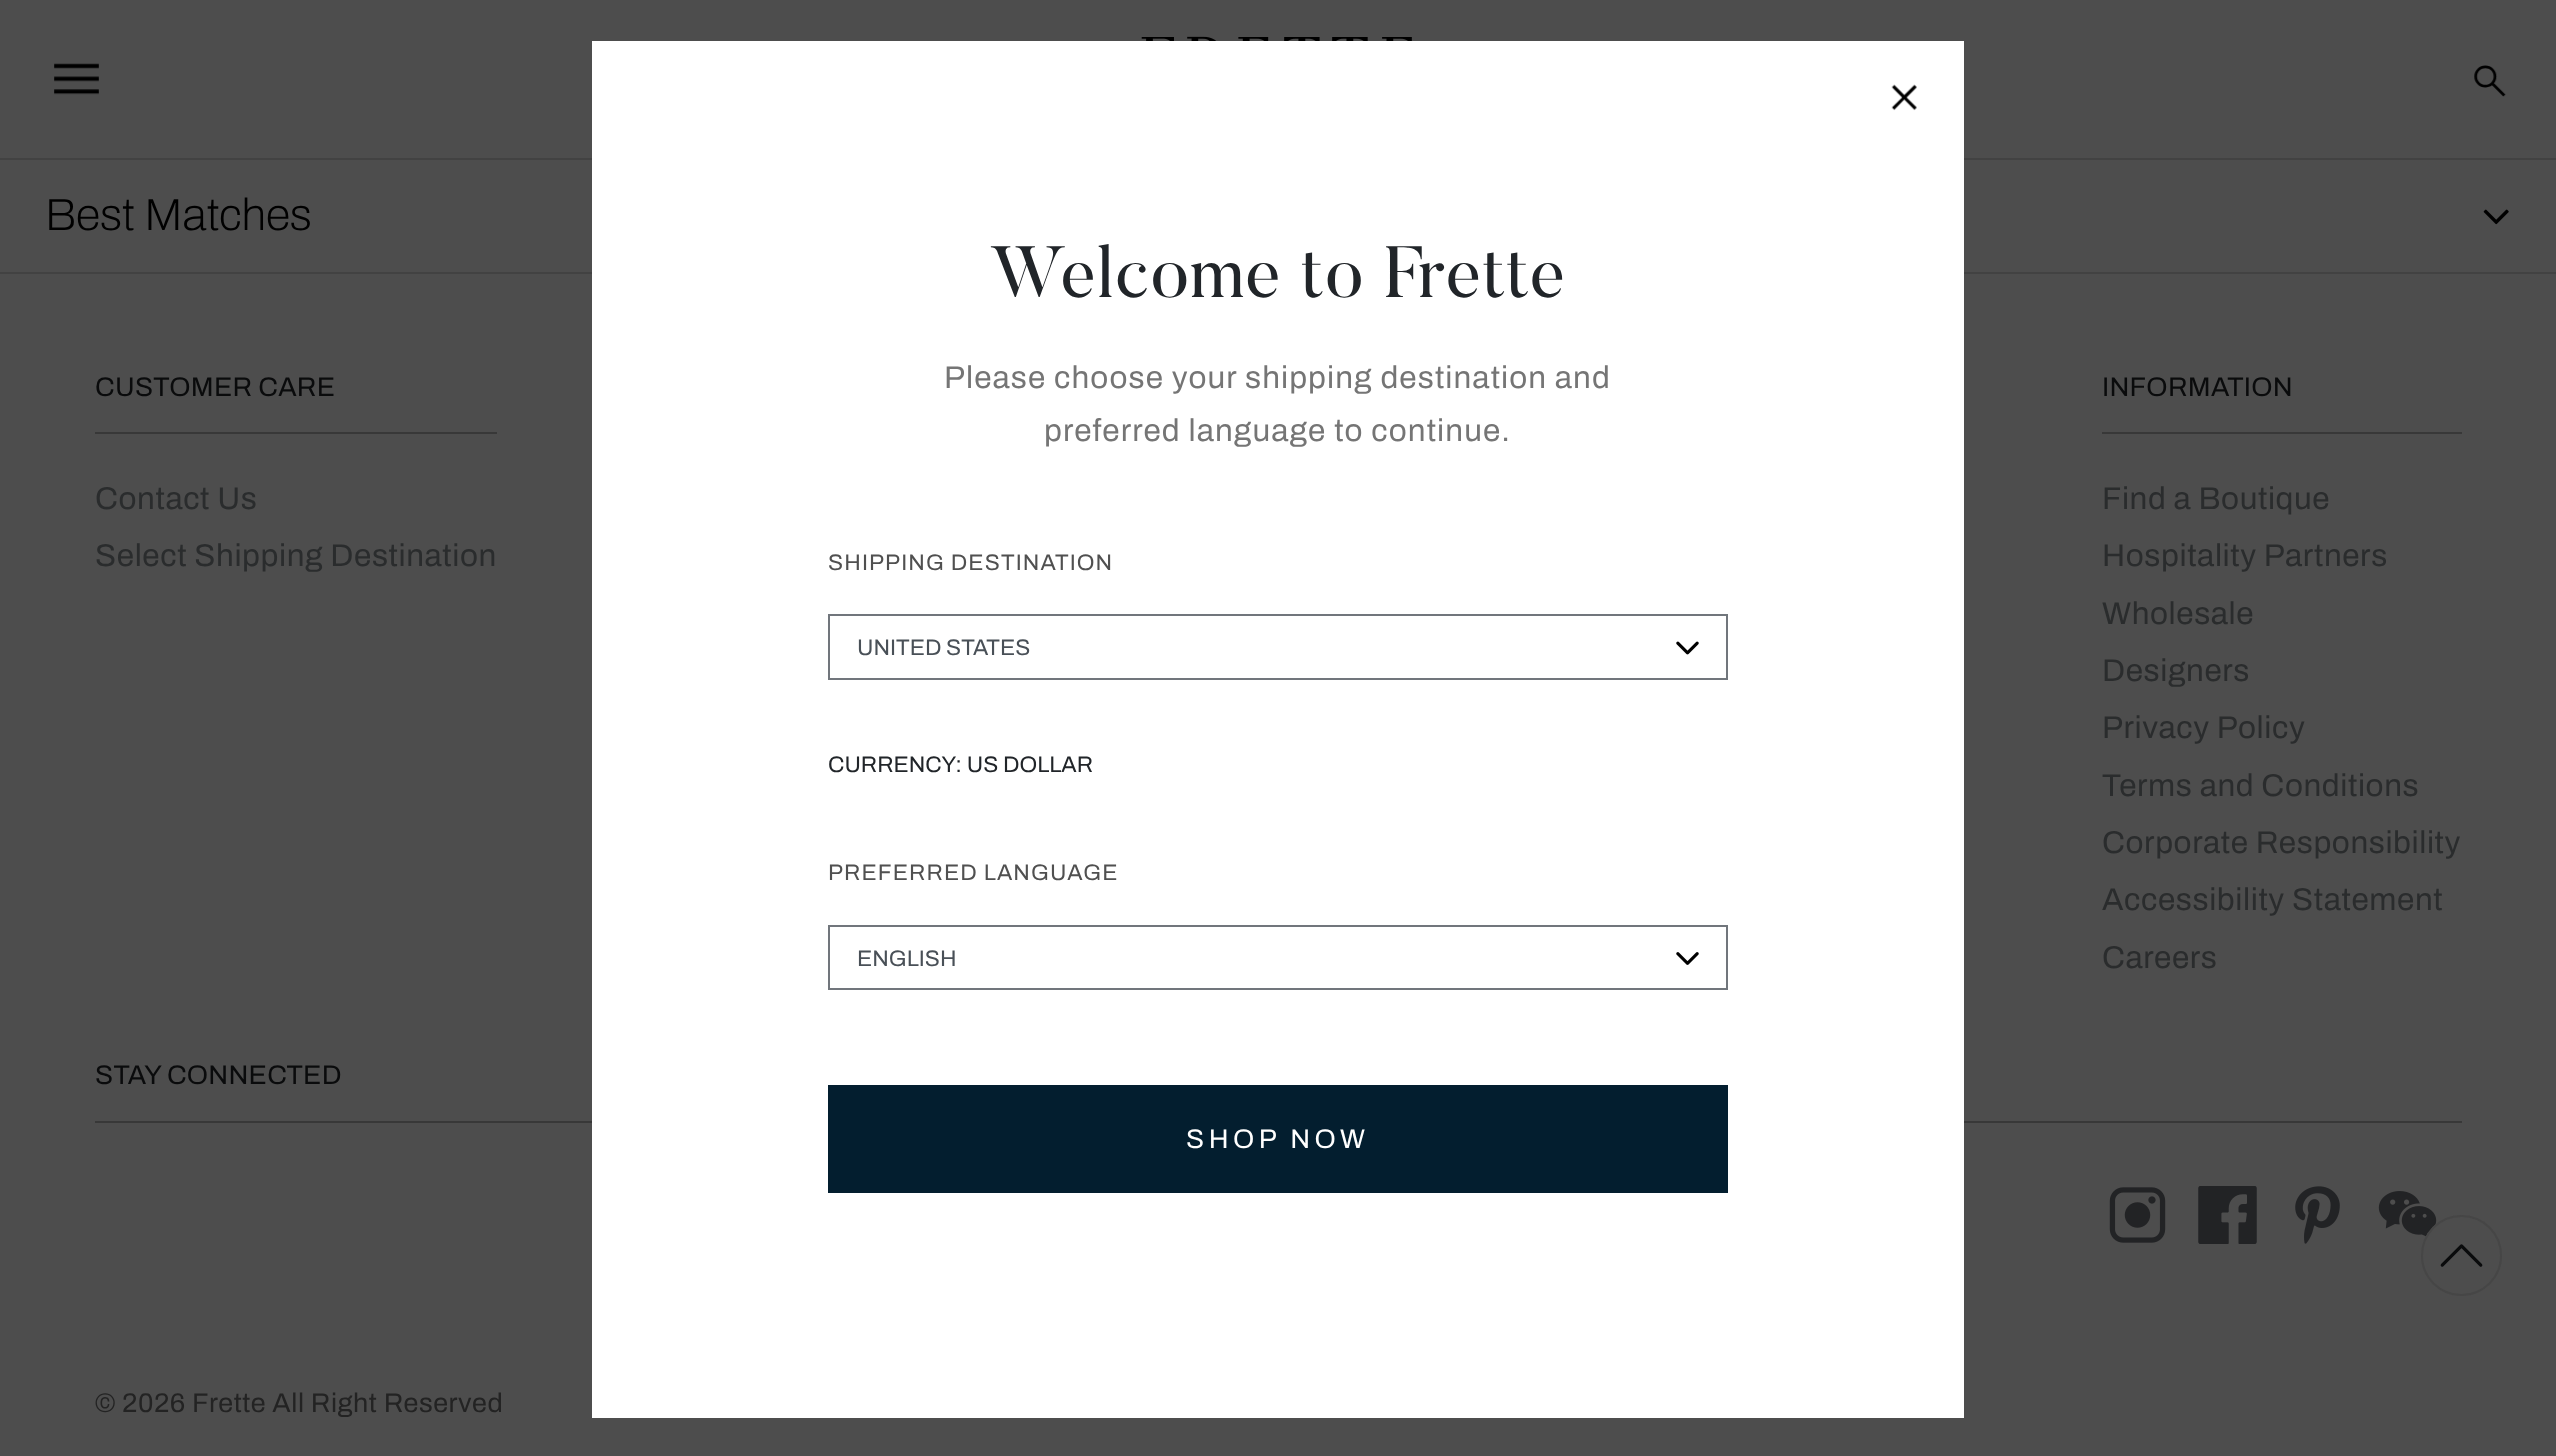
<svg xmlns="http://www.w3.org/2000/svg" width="2556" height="1456">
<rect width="100%" height="100%" fill="#4d4d4d"/>
<image x="1141" y="36" width="271" height="5" href="media/1.png"/>
<image x="54" y="63" width="45" height="32" href="media/2.png"/>
<image x="2474" y="65" width="32" height="32" href="media/3.png"/>
<rect y="158" width="2556" height="2" fill="#424242"/>
<rect y="272" width="2556" height="2" fill="#424242"/>
<image x="2483" y="209" width="26" height="16" href="media/4.png"/>
<text x="45" y="230" style="font-family:Archivo;font-size:45px;font-weight:200;fill:#000">Best Matches</text>
<rect x="95" y="432" width="402" height="2" fill="#383838"/>
<text x="95" y="396" style="font-family:Archivo;font-size:27px;font-weight:600;letter-spacing:0.25px;fill:#0a0b0c">CUSTOMER CARE</text>
<text x="95" y="509" style="font-family:Archivo;font-size:31.5px;font-weight:600;letter-spacing:0.6px;fill:#2a2c2d">Contact Us</text>
<text x="95" y="566" style="font-family:Archivo;font-size:31.5px;font-weight:600;letter-spacing:0.6px;fill:#2a2c2d">Select Shipping Destination</text>
<rect x="2102" y="432" width="360" height="2" fill="#383838"/>
<text x="2102" y="396" style="font-family:Archivo;font-size:27px;font-weight:600;letter-spacing:0.25px;fill:#0a0b0c">INFORMATION</text>
<text x="2102" y="509" style="font-family:Archivo;font-size:31.5px;font-weight:600;letter-spacing:0.6px;fill:#2a2c2d">Find a Boutique</text>
<text x="2102" y="566" style="font-family:Archivo;font-size:31.5px;font-weight:600;letter-spacing:0.6px;fill:#2a2c2d">Hospitality Partners</text>
<text x="2102" y="624" style="font-family:Archivo;font-size:31.5px;font-weight:600;letter-spacing:0.6px;fill:#2a2c2d">Wholesale</text>
<text x="2102" y="681" style="font-family:Archivo;font-size:31.5px;font-weight:600;letter-spacing:0.6px;fill:#2a2c2d">Designers</text>
<text x="2102" y="738" style="font-family:Archivo;font-size:31.5px;font-weight:600;letter-spacing:0.6px;fill:#2a2c2d">Privacy Policy</text>
<text x="2102" y="796" style="font-family:Archivo;font-size:31.5px;font-weight:600;letter-spacing:0.6px;fill:#2a2c2d">Terms and Conditions</text>
<text x="2102" y="853" style="font-family:Archivo;font-size:31.5px;font-weight:600;letter-spacing:0.6px;fill:#2a2c2d">Corporate Responsibility</text>
<text x="2102" y="910" style="font-family:Archivo;font-size:31.5px;font-weight:600;letter-spacing:0.6px;fill:#2a2c2d">Accessibility Statement</text>
<text x="2102" y="968" style="font-family:Archivo;font-size:31.5px;font-weight:600;letter-spacing:0.6px;fill:#2a2c2d">Careers</text>
<rect x="95" y="1121" width="2367" height="2" fill="#383838"/>
<text x="95" y="1084" style="font-family:Archivo;font-size:27px;font-weight:600;letter-spacing:0.25px;fill:#0a0b0c">STAY CONNECTED</text>
<image x="2109" y="1187" width="57" height="56" href="media/5.png"/>
<image x="2198" y="1186" width="59" height="58" href="media/6.png"/>
<image x="2295" y="1186" width="45" height="58" href="media/7.png"/>
<image x="2378" y="1191" width="59" height="46" href="media/8.png"/>
<text x="95" y="1412" style="font-family:Archivo;font-size:27px;font-weight:600;letter-spacing:0.55px;fill:#232323">© 2026 Frette All Right Reserved</text>
<circle cx="2461.5" cy="1255.5" r="40.5" fill="#4d4d4d"/>
<image x="2440" y="1244" width="43" height="23" href="media/9.png"/>
<circle cx="2461.5" cy="1255.5" r="39.5" fill="none" stroke="#464646" stroke-width="2"/>
<rect x="592" y="41" width="1372" height="1377" fill="#fff"/>
<image x="1891" y="84" width="26" height="27" href="media/10.png"/>
<text x="990" y="297" style="font-family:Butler;font-size:72px;letter-spacing:1.1px;fill:#212529">Welcome to Frette</text>
<text x="944" y="388" style="font-family:Archivo;font-size:31.5px;font-weight:600;letter-spacing:1.1px;fill:#757575">Please choose your shipping destination and</text>
<text x="1044" y="441" style="font-family:Archivo;font-size:31.5px;font-weight:600;letter-spacing:1.1px;fill:#757575">preferred language to continue.</text>
<text x="828" y="570" style="font-family:Archivo;font-size:22.5px;font-weight:600;letter-spacing:1.1px;fill:#505050">SHIPPING DESTINATION</text>
<image x="1676" y="641" width="23" height="14" href="media/11.png"/>
<rect x="829" y="615" width="898" height="64" fill="none" stroke="#71767c" stroke-width="2"/>
<text x="857" y="655" style="font-family:Archivo;font-size:22.5px;font-weight:600;fill:#495057">UNITED STATES</text>
<text x="828" y="772" style="font-family:Archivo;font-size:22.5px;font-weight:600;fill:#212529">CURRENCY: US DOLLAR</text>
<text x="828" y="880" style="font-family:Archivo;font-size:22.5px;font-weight:600;letter-spacing:1.1px;fill:#505050">PREFERRED LANGUAGE</text>
<image x="1676" y="952" width="23" height="13" href="media/12.png"/>
<rect x="829" y="926" width="898" height="63" fill="none" stroke="#71767c" stroke-width="2"/>
<text x="857" y="966" style="font-family:Archivo;font-size:22.5px;font-weight:600;fill:#495057">ENGLISH</text>
<rect x="828" y="1085" width="900" height="108" fill="#031e2f"/>
<text x="1186" y="1148" style="font-family:Archivo;font-size:27px;font-weight:600;letter-spacing:4.5px;fill:#fff">SHOP NOW</text>
</svg>
